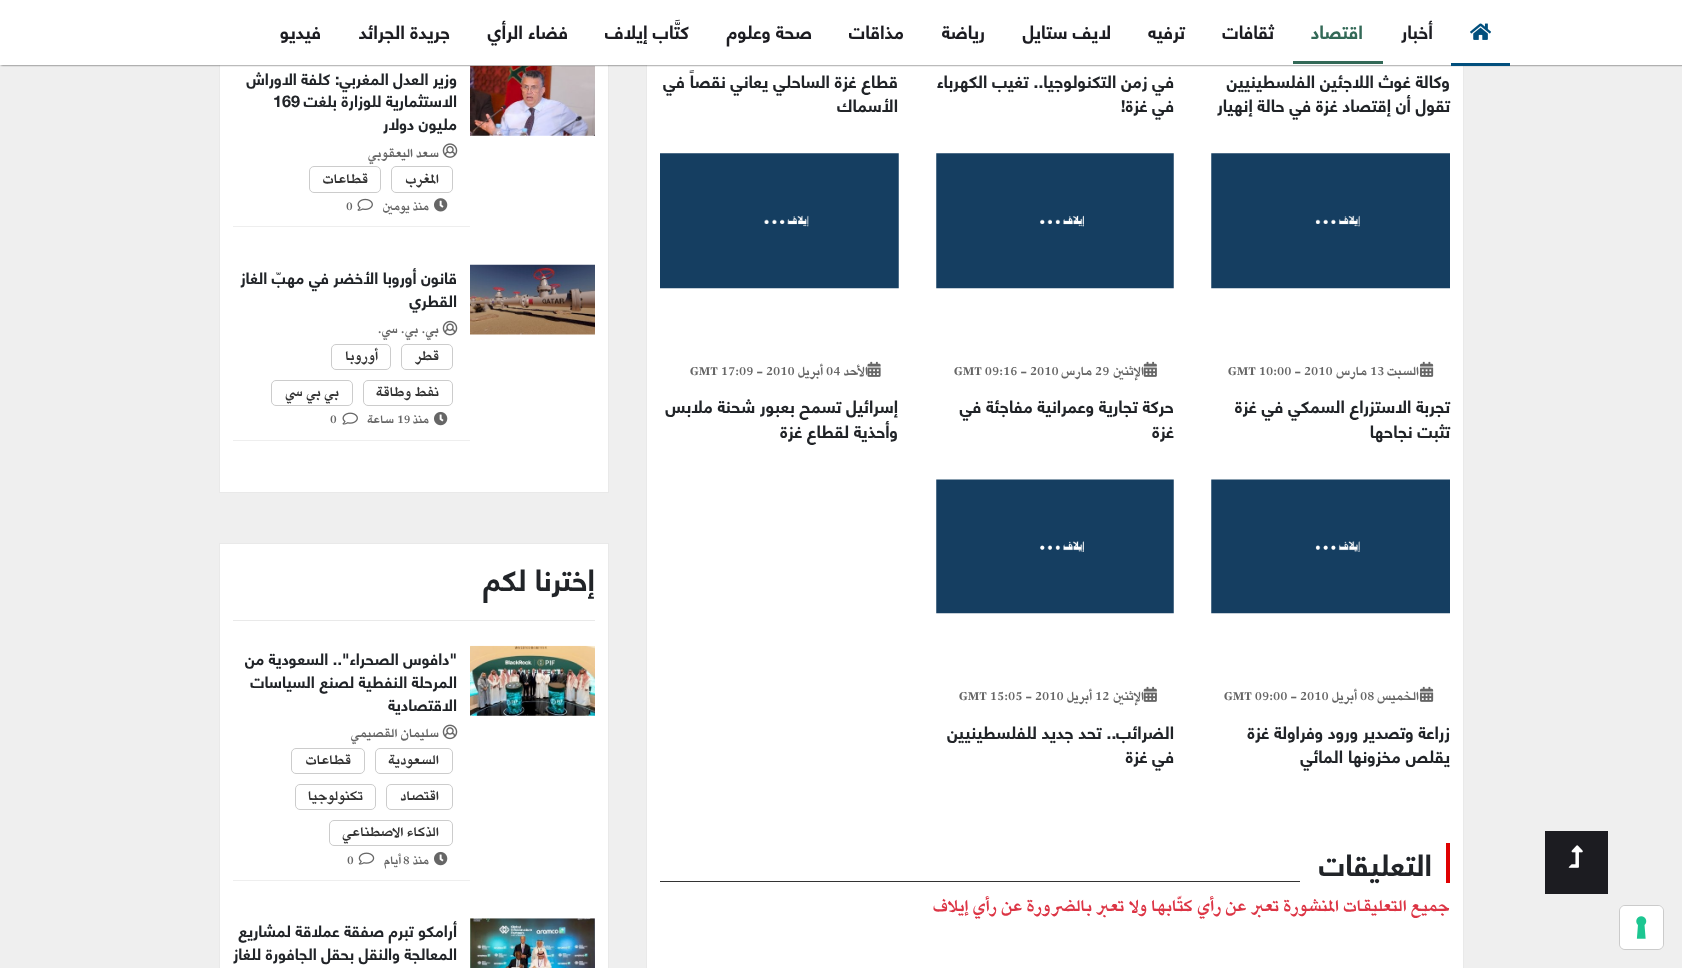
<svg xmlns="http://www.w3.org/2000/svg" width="1682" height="968">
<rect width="100%" height="100%" fill="#efefef"/>
<rect x="647" y="65" width="816" height="903" fill="#fff"/>
<rect x="646.5" y="-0.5" width="817" height="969" fill="none" stroke="#e9e9e9"/>
<rect x="220" y="65" width="388" height="427" fill="#fff"/>
<rect x="219.5" y="-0.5" width="389" height="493" fill="none" stroke="#e9e9e9"/>
<image x="470" y="65" width="125" height="71" href="media/11.png"/>
<rect x="1" width="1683" height="65" fill="#333" filter="blur(1px)"/>
<rect width="1682" height="65" fill="#fff"/>
<rect x="1451" y="63" width="59" height="3" fill="#014f7d"/>
<image x="1470" y="23" width="21" height="17" href="media/1.png"/>
<text x="1433" y="39" style="font-family:'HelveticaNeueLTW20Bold';font-size:18.75px;font-weight:bold;direction:rtl;fill:#1c1c21">أخبار</text>
<rect x="1293" y="61" width="90" height="3" fill="#336957"/>
<text x="1363" y="39" style="font-family:'HelveticaNeueLTW20Bold';font-size:18.75px;font-weight:bold;direction:rtl;fill:#336957">اقتصاد</text>
<text x="1274" y="39" style="font-family:'HelveticaNeueLTW20Bold';font-size:18.75px;font-weight:bold;direction:rtl;fill:#1c1c21">ثقافات</text>
<text x="1185" y="39" style="font-family:'HelveticaNeueLTW20Bold';font-size:18.75px;font-weight:bold;direction:rtl;fill:#1c1c21">ترفيه</text>
<text x="1111" y="39" style="font-family:'HelveticaNeueLTW20Bold';font-size:18.75px;font-weight:bold;direction:rtl;fill:#1c1c21">لايف ستايل</text>
<text x="985" y="39" style="font-family:'HelveticaNeueLTW20Bold';font-size:18.75px;font-weight:bold;direction:rtl;fill:#1c1c21">رياضة</text>
<text x="904" y="39" style="font-family:'HelveticaNeueLTW20Bold';font-size:18.75px;font-weight:bold;direction:rtl;fill:#1c1c21">مذاقات</text>
<text x="812" y="39" style="font-family:'HelveticaNeueLTW20Bold';font-size:18.75px;font-weight:bold;direction:rtl;fill:#1c1c21">صحة وعلوم</text>
<text x="689" y="39" style="font-family:'HelveticaNeueLTW20Bold';font-size:18.75px;font-weight:bold;direction:rtl;fill:#1c1c21">كتَّاب إيلاف</text>
<text x="568" y="39" style="font-family:'HelveticaNeueLTW20Bold';font-size:18.75px;font-weight:bold;direction:rtl;fill:#1c1c21">فضاء الرأي</text>
<text x="450" y="39" style="font-family:'HelveticaNeueLTW20Bold';font-size:18.75px;font-weight:bold;direction:rtl;fill:#1c1c21">جريدة الجرائد</text>
<text x="321" y="39" style="font-family:'HelveticaNeueLTW20Bold';font-size:18.75px;font-weight:bold;direction:rtl;fill:#1c1c21">فيديو</text>
<rect x="1545" y="831" width="63" height="63" fill="#1c1c21"/>
<image x="1568" y="845" width="15" height="23" href="media/2.png"/>
<text x="1450" y="88" style="font-family:'HelveticaNeueLTW20Bold';font-size:17.5px;font-weight:bold;direction:rtl;fill:#212428">وكالة غوث اللاجئين الفلسطينيين</text>
<text x="1450" y="112" style="font-family:'HelveticaNeueLTW20Bold';font-size:17.5px;font-weight:bold;direction:rtl;fill:#212428">تقول أن إقتصاد غزة في حالة إنهيار</text>
<text x="1174" y="88" style="font-family:'HelveticaNeueLTW20Bold';font-size:17.5px;font-weight:bold;direction:rtl;fill:#212428">في زمن التكنولوجيا.. تغيب الكهرباء</text>
<text x="1174" y="112" style="font-family:'HelveticaNeueLTW20Bold';font-size:17.5px;font-weight:bold;direction:rtl;fill:#212428">في غزة!</text>
<text x="898" y="88" style="font-family:'HelveticaNeueLTW20Bold';font-size:17.5px;font-weight:bold;direction:rtl;fill:#212428">قطاع غزة الساحلي يعاني نقصاً في</text>
<text x="898" y="112" style="font-family:'HelveticaNeueLTW20Bold';font-size:17.5px;font-weight:bold;direction:rtl;fill:#212428">الأسماك</text>
<image x="1211" y="153" width="239" height="136" href="media/3.png"/>
<image x="1420" y="361" width="14" height="16" href="media/4.png"/>
<text x="1419" y="375" style="font-family:'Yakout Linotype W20';font-size:15px;font-weight:bold;direction:rtl;fill:#666">السبت</text>
<text x="1370" y="375" style="font-family:'Yakout Linotype W20';font-size:15px;font-weight:bold;fill:#666">13</text>
<text x="1367" y="375" style="font-family:'Yakout Linotype W20';font-size:15px;font-weight:bold;direction:rtl;fill:#666">مارس</text>
<text x="1228" y="375" style="font-family:'Yakout Linotype W20';font-size:15px;font-weight:bold;fill:#666">GMT 10:00 - 2010</text>
<text x="1450" y="413" style="font-family:'HelveticaNeueLTW20Bold';font-size:17.5px;font-weight:bold;direction:rtl;fill:#212428">تجربة الاستزراع السمكي في غزة</text>
<text x="1450" y="438" style="font-family:'HelveticaNeueLTW20Bold';font-size:17.5px;font-weight:bold;direction:rtl;fill:#212428">تثبت نجاحها</text>
<image x="936" y="153" width="238" height="136" href="media/5.png"/>
<image x="1143" y="361" width="14" height="16" href="media/6.png"/>
<text x="1144" y="375" style="font-family:'Yakout Linotype W20';font-size:15px;font-weight:bold;direction:rtl;fill:#666">الإثنين</text>
<text x="1095" y="375" style="font-family:'Yakout Linotype W20';font-size:15px;font-weight:bold;fill:#666">29</text>
<text x="1092" y="375" style="font-family:'Yakout Linotype W20';font-size:15px;font-weight:bold;direction:rtl;fill:#666">مارس</text>
<text x="954" y="375" style="font-family:'Yakout Linotype W20';font-size:15px;font-weight:bold;fill:#666">GMT 09:16 - 2010</text>
<text x="1174" y="413" style="font-family:'HelveticaNeueLTW20Bold';font-size:17.5px;font-weight:bold;direction:rtl;fill:#212428">حركة تجارية وعمرانية مفاجئة في</text>
<text x="1174" y="438" style="font-family:'HelveticaNeueLTW20Bold';font-size:17.5px;font-weight:bold;direction:rtl;fill:#212428">غزة</text>
<image x="660" y="153" width="239" height="136" href="media/7.png"/>
<image x="867" y="361" width="14" height="16" href="media/8.png"/>
<text x="868" y="375" style="font-family:'Yakout Linotype W20';font-size:15px;font-weight:bold;direction:rtl;fill:#666">الأحد</text>
<text x="826" y="375" style="font-family:'Yakout Linotype W20';font-size:15px;font-weight:bold;fill:#666">04</text>
<text x="823" y="375" style="font-family:'Yakout Linotype W20';font-size:15px;font-weight:bold;direction:rtl;fill:#666">أبريل</text>
<text x="690" y="375" style="font-family:'Yakout Linotype W20';font-size:15px;font-weight:bold;fill:#666">GMT 17:09 - 2010</text>
<text x="898" y="413" style="font-family:'HelveticaNeueLTW20Bold';font-size:17.5px;font-weight:bold;direction:rtl;fill:#212428">إسرائيل تسمح بعبور شحنة ملابس</text>
<text x="898" y="438" style="font-family:'HelveticaNeueLTW20Bold';font-size:17.5px;font-weight:bold;direction:rtl;fill:#212428">وأحذية لقطاع غزة</text>
<image x="1211" y="479" width="239" height="135" href="media/9.png"/>
<image x="1420" y="686" width="14" height="16" href="media/4.png"/>
<text x="1419" y="700" style="font-family:'Yakout Linotype W20';font-size:15px;font-weight:bold;direction:rtl;fill:#666">الخميس</text>
<text x="1360" y="700" style="font-family:'Yakout Linotype W20';font-size:15px;font-weight:bold;fill:#666">08</text>
<text x="1357" y="700" style="font-family:'Yakout Linotype W20';font-size:15px;font-weight:bold;direction:rtl;fill:#666">أبريل</text>
<text x="1224" y="700" style="font-family:'Yakout Linotype W20';font-size:15px;font-weight:bold;fill:#666">GMT 09:00 - 2010</text>
<text x="1450" y="739" style="font-family:'HelveticaNeueLTW20Bold';font-size:17.5px;font-weight:bold;direction:rtl;fill:#212428">زراعة وتصدير ورود وفراولة غزة</text>
<text x="1450" y="763" style="font-family:'HelveticaNeueLTW20Bold';font-size:17.5px;font-weight:bold;direction:rtl;fill:#212428">يقلص مخزونها المائي</text>
<image x="936" y="479" width="238" height="135" href="media/10.png"/>
<image x="1143" y="686" width="14" height="16" href="media/6.png"/>
<text x="1144" y="700" style="font-family:'Yakout Linotype W20';font-size:15px;font-weight:bold;direction:rtl;fill:#666">الإثنين</text>
<text x="1095" y="700" style="font-family:'Yakout Linotype W20';font-size:15px;font-weight:bold;fill:#666">12</text>
<text x="1092" y="700" style="font-family:'Yakout Linotype W20';font-size:15px;font-weight:bold;direction:rtl;fill:#666">أبريل</text>
<text x="959" y="700" style="font-family:'Yakout Linotype W20';font-size:15px;font-weight:bold;fill:#666">GMT 15:05 - 2010</text>
<text x="1174" y="739" style="font-family:'HelveticaNeueLTW20Bold';font-size:17.5px;font-weight:bold;direction:rtl;fill:#212428">الضرائب.. تحد جديد للفلسطينيين</text>
<text x="1174" y="763" style="font-family:'HelveticaNeueLTW20Bold';font-size:17.5px;font-weight:bold;direction:rtl;fill:#212428">في غزة</text>
<rect x="1446" y="843" width="4" height="40" fill="#df0001"/>
<text x="1432" y="876" style="font-family:'HelveticaNeueLTW20Bold';font-size:30px;font-weight:bold;direction:rtl;fill:#212428">التعليقات</text>
<rect x="660" y="881" width="640" height="1" fill="#333"/>
<text x="1450" y="911" style="font-family:'Yakout Linotype W20';font-size:20px;font-weight:bold;direction:rtl;fill:#dc3545">جميع التعليقات المنشورة تعبر عن رأي كتّابها ولا تعبر بالضرورة عن رأي إيلاف</text>
<rect x="233" y="226" width="237" height="1" fill="#eee"/>
<text x="457" y="85" style="font-family:'HelveticaNeueLTW20Bold';font-size:16.25px;font-weight:bold;direction:rtl;fill:#212428">وزير العدل المغربي: كلفة الاوراش</text>
<text x="457" y="107" style="font-family:'HelveticaNeueLTW20Bold';font-size:16.25px;font-weight:bold;direction:rtl;fill:#212428">الاستثمارية للوزارة بلغت</text>
<text x="273" y="107" style="font-family:'HelveticaNeueLTW20Bold';font-size:16.25px;font-weight:bold;fill:#212428">169</text>
<text x="457" y="130" style="font-family:'HelveticaNeueLTW20Bold';font-size:16.25px;font-weight:bold;direction:rtl;fill:#212428">مليون دولار</text>
<image x="442" y="143" width="16" height="15" href="media/12.png"/>
<text x="439" y="157" style="font-family:'Yakout Linotype W20';font-size:15px;font-weight:bold;direction:rtl;fill:#666">سعد اليعقوبي</text>
<rect x="391.5" y="166.5" width="61" height="26" rx="4.5" fill="none" stroke="#ccc"/>
<text x="439" y="183" style="font-family:'Yakout Linotype W20';font-size:16.25px;font-weight:bold;direction:rtl;fill:#333">المغرب</text>
<rect x="309.5" y="166.5" width="71" height="26" rx="4.5" fill="none" stroke="#ccc"/>
<text x="368" y="183" style="font-family:'Yakout Linotype W20';font-size:16.25px;font-weight:bold;direction:rtl;fill:#333">قطاعات</text>
<image x="434" y="198" width="14" height="14" href="media/13.png"/>
<text x="429" y="210" style="font-family:'Yakout Linotype W20';font-size:14px;font-weight:bold;direction:rtl;fill:#666">منذ يومين</text>
<image x="357" y="198" width="16" height="13" href="media/14.png"/>
<text x="346" y="210" style="font-family:'Yakout Linotype W20';font-size:14px;font-weight:bold;fill:#666">0</text>
<image x="470" y="264" width="125" height="71" href="media/15.png"/>
<rect x="233" y="440" width="237" height="1" fill="#eee"/>
<text x="457" y="284" style="font-family:'HelveticaNeueLTW20Bold';font-size:16.25px;font-weight:bold;direction:rtl;fill:#212428">قانون أوروبا الأخضر في مهبّ الغاز</text>
<text x="457" y="307" style="font-family:'HelveticaNeueLTW20Bold';font-size:16.25px;font-weight:bold;direction:rtl;fill:#212428">القطري</text>
<image x="442" y="320" width="16" height="16" href="media/16.png"/>
<text x="439" y="333" style="font-family:'Yakout Linotype W20';font-size:15px;font-weight:bold;direction:rtl;fill:#666">بي. بي. سي.</text>
<rect x="401.5" y="344.5" width="51" height="25" rx="4.5" fill="none" stroke="#ccc"/>
<text x="439" y="360" style="font-family:'Yakout Linotype W20';font-size:16.25px;font-weight:bold;direction:rtl;fill:#333">قطر</text>
<rect x="331.5" y="344.5" width="59" height="25" rx="4.5" fill="none" stroke="#ccc"/>
<text x="378" y="360" style="font-family:'Yakout Linotype W20';font-size:16.25px;font-weight:bold;direction:rtl;fill:#333">أوروبا</text>
<rect x="363.5" y="380.5" width="89" height="25" rx="4.5" fill="none" stroke="#ccc"/>
<text x="439" y="396" style="font-family:'Yakout Linotype W20';font-size:16.25px;font-weight:bold;direction:rtl;fill:#333">نفط وطاقة</text>
<rect x="271.5" y="380.5" width="81" height="25" rx="4.5" fill="none" stroke="#ccc"/>
<text x="339" y="396" style="font-family:'Yakout Linotype W20';font-size:16.25px;font-weight:bold;direction:rtl;fill:#333">بي بي سي</text>
<image x="434" y="411" width="14" height="15" href="media/17.png"/>
<text x="429" y="423" style="font-family:'Yakout Linotype W20';font-size:14px;font-weight:bold;direction:rtl;fill:#666">منذ</text>
<text x="397" y="423" style="font-family:'Yakout Linotype W20';font-size:14px;font-weight:bold;fill:#666">19</text>
<text x="394" y="423" style="font-family:'Yakout Linotype W20';font-size:14px;font-weight:bold;direction:rtl;fill:#666">ساعة</text>
<image x="342" y="412" width="16" height="13" href="media/18.png"/>
<text x="330" y="423" style="font-family:'Yakout Linotype W20';font-size:14px;font-weight:bold;fill:#666">0</text>
<rect x="219.5" y="543.5" width="389" height="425" fill="#fff" stroke="#e9e9e9"/>
<rect x="233" y="620" width="362" height="1" fill="#e9e9e9"/>
<text x="595" y="591" style="font-family:'HelveticaNeueLTW20Bold';font-size:30px;font-weight:bold;direction:rtl;fill:#212428">إخترنا لكم</text>
<image x="470" y="645" width="125" height="71" href="media/19.png"/>
<rect x="233" y="880" width="237" height="1" fill="#eee"/>
<text x="457" y="665" style="font-family:'HelveticaNeueLTW20Bold';font-size:16.25px;font-weight:bold;direction:rtl;fill:#212428">"دافوس الصحراء".. السعودية من</text>
<text x="457" y="688" style="font-family:'HelveticaNeueLTW20Bold';font-size:16.25px;font-weight:bold;direction:rtl;fill:#212428">المرحلة النفطية لصنع السياسات</text>
<text x="457" y="711" style="font-family:'HelveticaNeueLTW20Bold';font-size:16.25px;font-weight:bold;direction:rtl;fill:#212428">الاقتصادية</text>
<image x="442" y="724" width="16" height="16" href="media/20.png"/>
<text x="439" y="737" style="font-family:'Yakout Linotype W20';font-size:15px;font-weight:bold;direction:rtl;fill:#666">سليمان القصيمي</text>
<rect x="375.5" y="748.5" width="77" height="25" rx="4.5" fill="none" stroke="#ccc"/>
<text x="439" y="764" style="font-family:'Yakout Linotype W20';font-size:16.25px;font-weight:bold;direction:rtl;fill:#333">السعودية</text>
<rect x="291.5" y="748.5" width="73" height="25" rx="4.5" fill="none" stroke="#ccc"/>
<text x="351" y="764" style="font-family:'Yakout Linotype W20';font-size:16.25px;font-weight:bold;direction:rtl;fill:#333">قطاعات</text>
<rect x="386.5" y="784.5" width="66" height="25" rx="4.5" fill="none" stroke="#ccc"/>
<text x="439" y="800" style="font-family:'Yakout Linotype W20';font-size:16.25px;font-weight:bold;direction:rtl;fill:#333">اقتصاد</text>
<rect x="295.5" y="784.5" width="80" height="25" rx="4.5" fill="none" stroke="#ccc"/>
<text x="363" y="800" style="font-family:'Yakout Linotype W20';font-size:16.25px;font-weight:bold;direction:rtl;fill:#333">تكنولوجيا</text>
<rect x="329.5" y="820.5" width="123" height="25" rx="4.5" fill="none" stroke="#ccc"/>
<text x="439" y="836" style="font-family:'Yakout Linotype W20';font-size:16.25px;font-weight:bold;direction:rtl;fill:#333">الذكاء الاصطناعي</text>
<image x="434" y="851" width="14" height="15" href="media/17.png"/>
<text x="429" y="864" style="font-family:'Yakout Linotype W20';font-size:14px;font-weight:bold;direction:rtl;fill:#666">منذ</text>
<text x="403" y="864" style="font-family:'Yakout Linotype W20';font-size:14px;font-weight:bold;fill:#666">8</text>
<text x="401" y="864" style="font-family:'Yakout Linotype W20';font-size:14px;font-weight:bold;direction:rtl;fill:#666">أيام</text>
<image x="358" y="852" width="17" height="13" href="media/21.png"/>
<text x="347" y="864" style="font-family:'Yakout Linotype W20';font-size:14px;font-weight:bold;fill:#666">0</text>
<image x="470" y="918" width="125" height="50" href="media/22.png"/>
<text x="457" y="937" style="font-family:'HelveticaNeueLTW20Bold';font-size:16.25px;font-weight:bold;direction:rtl;fill:#212428">أرامكو تبرم صفقة عملاقة لمشاريع</text>
<text x="457" y="960" style="font-family:'HelveticaNeueLTW20Bold';font-size:16.25px;font-weight:bold;direction:rtl;fill:#212428">المعالجة والنقل بحقل الجافورة للغاز</text>
<rect x="1619.5" y="905.5" width="44" height="44" rx="5.5" fill="none" stroke="#cbcbcb"/>
<rect x="1620" y="906" width="43" height="43" rx="5" fill="#fff"/>
<image x="1636" y="916" width="11" height="23" href="media/23.png"/>
</svg>
